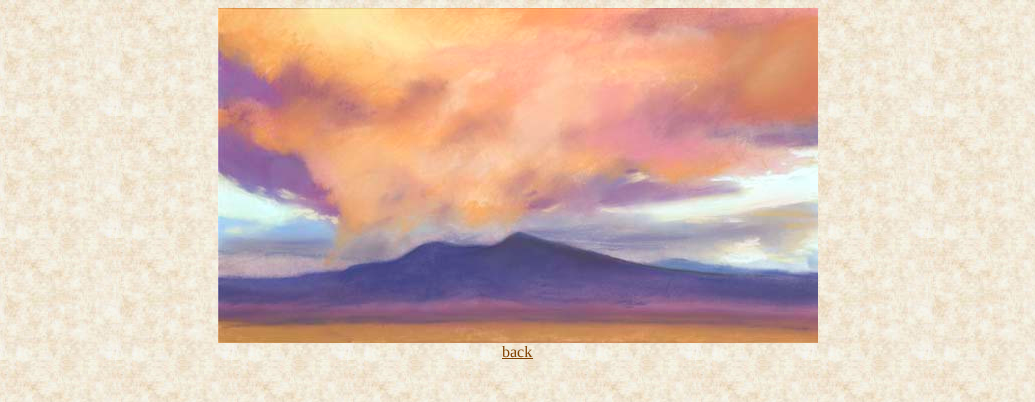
<svg xmlns="http://www.w3.org/2000/svg" width="1035" height="402">
<rect width="100%" height="100%" fill="#fff"/>
<image x="0" y="0" width="1035" height="402" href="media/1.png"/>
<image x="218" y="8" width="600" height="335" href="media/2.png"/>
<text x="502" y="357" style="font-family:Liberation Serif;font-size:16px;fill:#804000">back</text>
<rect x="502" y="358" width="31" height="1" fill="#804000"/>
</svg>
